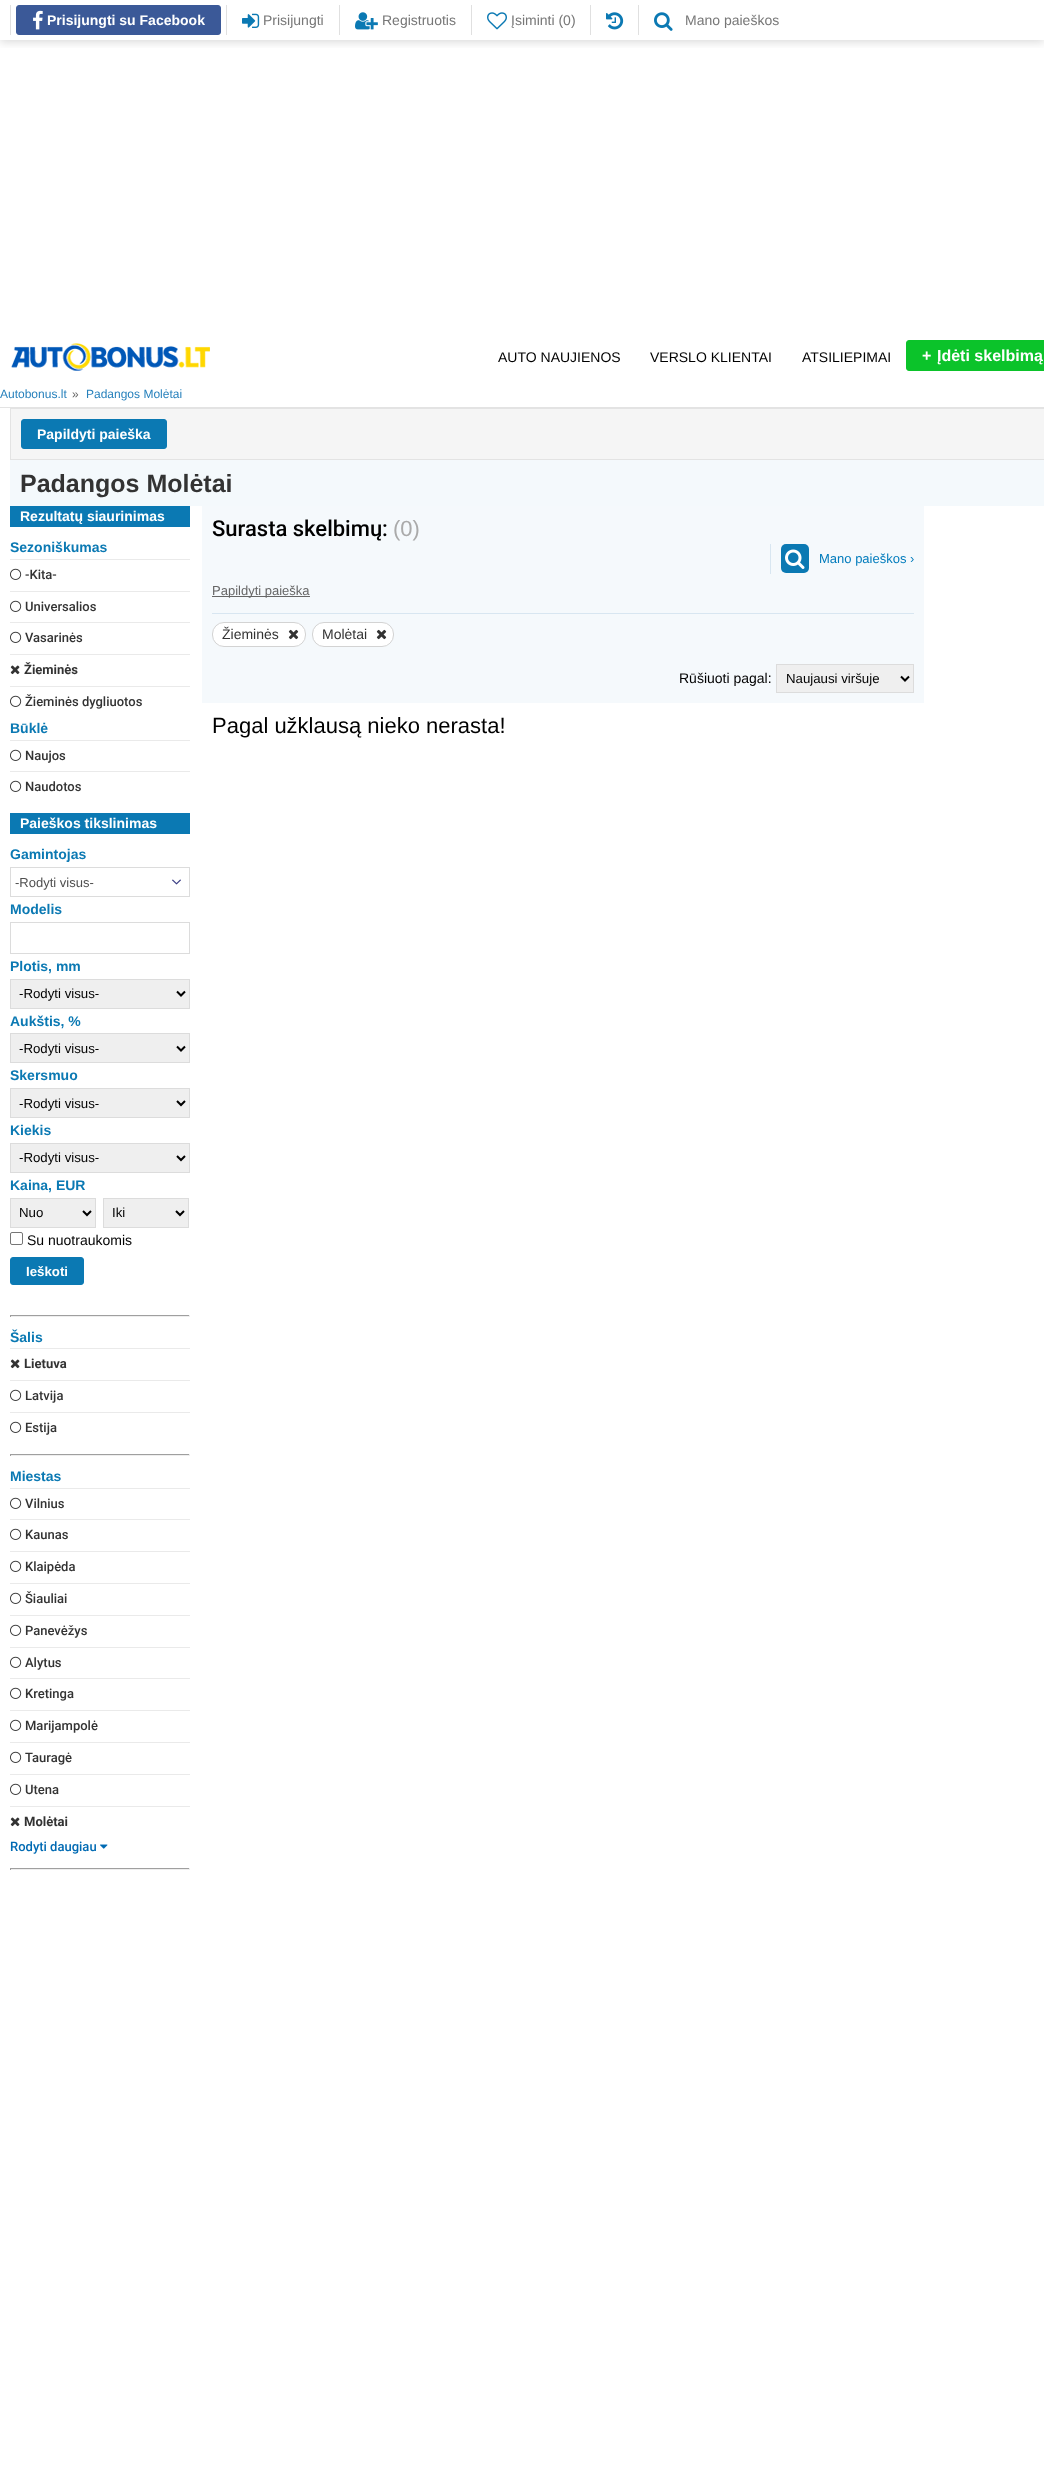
<svg xmlns="http://www.w3.org/2000/svg" width="1044" height="2470">
<defs>
<clipPath id="clip1"><rect x="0" y="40" width="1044" height="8"/></clipPath>
</defs>
<rect width="100%" height="100%" fill="#fff"/>
<g clip-path="url(#clip1)">
<rect y="2" width="1044" height="40" fill="#00000026" filter="blur(5px)"/>
</g>
<rect x="10" y="5" width="1" height="30" fill="#e0e0e0"/>
<rect x="16.5" y="5.5" width="204" height="29" rx="2.5" fill="#3b5998" stroke="#3b5998"/>
<image x="33" y="10" width="10" height="20" href="media/1.png"/>
<text x="47" y="25" style="font-family:Liberation Sans;font-size:14px;font-weight:bold;fill:#fff">Prisijungti su Facebook</text>
<rect x="226" y="5" width="1" height="30" fill="#e0e0e0"/>
<image x="242" y="13" width="18" height="15" href="media/2.png"/>
<text x="263" y="25" style="font-family:Liberation Sans;font-size:14px;fill:#777">Prisijungti</text>
<rect x="339" y="5" width="1" height="30" fill="#e0e0e0"/>
<image x="355" y="12" width="23" height="18" href="media/3.png"/>
<text x="382" y="25" style="font-family:Liberation Sans;font-size:14px;fill:#777">Registruotis</text>
<rect x="471" y="5" width="1" height="30" fill="#e0e0e0"/>
<image x="487" y="12" width="20" height="18" href="media/4.png"/>
<text x="511" y="25" style="font-family:Liberation Sans;font-size:14px;fill:#777">Įsiminti (0)</text>
<rect x="590" y="5" width="1" height="30" fill="#e0e0e0"/>
<image x="606" y="12" width="18" height="18" href="media/5.png"/>
<rect x="638" y="5" width="1" height="30" fill="#e0e0e0"/>
<image x="654" y="12" width="19" height="19" href="media/6.png"/>
<text x="685" y="25" style="font-family:Liberation Sans;font-size:14px;fill:#777">Mano paieškos</text>
<image x="11" y="343" width="199" height="28" href="media/7.png"/>
<text x="498" y="362" style="font-family:Liberation Sans;font-size:14px;fill:#000">AUTO NAUJIENOS</text>
<text x="650" y="362" style="font-family:Liberation Sans;font-size:14px;fill:#000">VERSLO KLIENTAI</text>
<text x="802" y="362" style="font-family:Liberation Sans;font-size:14px;fill:#000">ATSILIEPIMAI</text>
<rect x="906.5" y="340.5" width="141" height="30" rx="2.5" fill="#0bc32a" stroke="#0bc32a"/>
<text x="922" y="361" style="font-family:Liberation Sans;font-size:16px;font-weight:bold;fill:#fff">+</text>
<text x="937" y="361" style="font-family:Liberation Sans;font-size:16px;font-weight:bold;fill:#fff">Įdėti skelbimą</text>
<rect y="407" width="1044" height="1" fill="#e3e3e3"/>
<text x="0" y="398" style="font-family:Liberation Sans;font-size:12px;fill:#2781bc">Autobonus.lt</text>
<text x="72" y="398" style="font-family:Liberation Sans;font-size:12px;fill:#666">»</text>
<text x="86" y="398" style="font-family:Liberation Sans;font-size:12px;fill:#2781bc">Padangos Molėtai</text>
<rect x="10.5" y="408.5" width="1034" height="51" fill="#f5f5f5" stroke="#e3e3e3"/>
<rect x="21.5" y="419.5" width="145" height="29" rx="2.5" fill="#0b79b3" stroke="#0b79b3"/>
<text x="37" y="439" style="font-family:Liberation Sans;font-size:14px;font-weight:bold;fill:#fff">Papildyti paieška</text>
<rect x="10" y="460" width="1034" height="46" fill="#f4f9fc"/>
<text x="20" y="492" style="font-family:Liberation Sans;font-size:25px;font-weight:bold;fill:#333">Padangos Molėtai</text>
<rect x="10" y="506" width="180" height="21" fill="#0b79b3"/>
<text x="20" y="521" style="font-family:Liberation Sans;font-size:14px;font-weight:bold;fill:#fff">Rezultatų siaurinimas</text>
<text x="10" y="552" style="font-family:Liberation Sans;font-size:14px;font-weight:bold;fill:#0b79b3">Sezoniškumas</text>
<rect x="10" y="559" width="180" height="1" fill="#eaeaea"/>
<image x="10" y="568" width="12" height="12" href="media/8.png"/>
<text x="25" y="579" style="font-family:Roboto;font-size:13px;font-weight:500;fill:#333">-Kita-</text>
<rect x="10" y="591" width="180" height="1" fill="#eaeaea"/>
<image x="10" y="600" width="12" height="12" href="media/8.png"/>
<text x="25" y="611" style="font-family:Roboto;font-size:13px;font-weight:500;fill:#333">Universalios</text>
<rect x="10" y="622" width="180" height="1" fill="#eaeaea"/>
<image x="10" y="631" width="12" height="12" href="media/8.png"/>
<text x="25" y="642" style="font-family:Roboto;font-size:13px;font-weight:500;fill:#333">Vasarinės</text>
<rect x="10" y="654" width="180" height="1" fill="#eaeaea"/>
<image x="10" y="665" width="10" height="10" href="media/9.png"/>
<text x="24" y="674" style="font-family:Roboto;font-size:13px;font-weight:bold;fill:#333">Žieminės</text>
<rect x="10" y="686" width="180" height="1" fill="#eaeaea"/>
<image x="10" y="695" width="12" height="12" href="media/8.png"/>
<text x="25" y="706" style="font-family:Roboto;font-size:13px;font-weight:500;fill:#333">Žieminės dygliuotos</text>
<text x="10" y="733" style="font-family:Liberation Sans;font-size:14px;font-weight:bold;fill:#0b79b3">Būklė</text>
<rect x="10" y="740" width="180" height="1" fill="#eaeaea"/>
<image x="10" y="749" width="12" height="12" href="media/8.png"/>
<text x="25" y="760" style="font-family:Roboto;font-size:13px;font-weight:500;fill:#333">Naujos</text>
<rect x="10" y="771" width="180" height="1" fill="#eaeaea"/>
<image x="10" y="780" width="12" height="12" href="media/8.png"/>
<text x="25" y="791" style="font-family:Roboto;font-size:13px;font-weight:500;fill:#333">Naudotos</text>
<rect x="10" y="813" width="180" height="21" fill="#0b79b3"/>
<text x="20" y="828" style="font-family:Liberation Sans;font-size:14px;font-weight:bold;fill:#fff">Paieškos tikslinimas</text>
<text x="10" y="859" style="font-family:Liberation Sans;font-size:14px;font-weight:bold;fill:#0b79b3">Gamintojas</text>
<rect x="10.5" y="867.5" width="179" height="29" fill="none" stroke="#dcdcdc"/>
<text x="15" y="887" style="font-family:Liberation Sans;font-size:13px;fill:#4f4f4f">-Rodyti visus-</text>
<image x="172" y="879" width="9" height="6" href="media/10.png"/>
<text x="10" y="914" style="font-family:Liberation Sans;font-size:14px;font-weight:bold;fill:#0b79b3">Modelis</text>
<rect x="10.5" y="922.5" width="179" height="31" fill="none" stroke="#dcdcdc"/>
<text x="10" y="971" style="font-family:Liberation Sans;font-size:14px;font-weight:bold;fill:#0b79b3">Plotis, mm</text>
<rect x="10.5" y="979.5" width="179" height="29" fill="#efefef" stroke="#dcdcdc"/>
<path d="M177 991.5l4 4l4-4" fill="none" stroke="#000" stroke-width="2"/>
<text x="19" y="998" style="font-family:Liberation Sans;font-size:13.25px;fill:#000">-Rodyti visus-</text>
<text x="10" y="1026" style="font-family:Liberation Sans;font-size:14px;font-weight:bold;fill:#0b79b3">Aukštis, %</text>
<rect x="10.5" y="1033.5" width="179" height="29" fill="#efefef" stroke="#dcdcdc"/>
<path d="M177 1046.5l4 4l4-4" fill="none" stroke="#000" stroke-width="2"/>
<text x="19" y="1053" style="font-family:Liberation Sans;font-size:13.25px;fill:#000">-Rodyti visus-</text>
<text x="10" y="1080" style="font-family:Liberation Sans;font-size:14px;font-weight:bold;fill:#0b79b3">Skersmuo</text>
<rect x="10.5" y="1088.5" width="179" height="29" fill="#efefef" stroke="#dcdcdc"/>
<path d="M177 1101l4 4l4-4" fill="none" stroke="#000" stroke-width="2"/>
<text x="19" y="1108" style="font-family:Liberation Sans;font-size:13.25px;fill:#000">-Rodyti visus-</text>
<text x="10" y="1135" style="font-family:Liberation Sans;font-size:14px;font-weight:bold;fill:#0b79b3">Kiekis</text>
<rect x="10.5" y="1143.5" width="179" height="29" fill="#efefef" stroke="#dcdcdc"/>
<path d="M177 1156l4 4l4-4" fill="none" stroke="#000" stroke-width="2"/>
<text x="19" y="1162" style="font-family:Liberation Sans;font-size:13.25px;fill:#000">-Rodyti visus-</text>
<text x="10" y="1190" style="font-family:Liberation Sans;font-size:14px;font-weight:bold;fill:#0b79b3">Kaina, EUR</text>
<rect x="10.5" y="1198.5" width="85" height="29" fill="#efefef" stroke="#dcdcdc"/>
<path d="M83 1211l4 4l4-4" fill="none" stroke="#000" stroke-width="2"/>
<text x="19" y="1217" style="font-family:Liberation Sans;font-size:13.25px;fill:#000">Nuo</text>
<rect x="103.5" y="1198.5" width="85" height="29" fill="#efefef" stroke="#dcdcdc"/>
<path d="M176 1211l4 4l4-4" fill="none" stroke="#000" stroke-width="2"/>
<text x="112" y="1217" style="font-family:Liberation Sans;font-size:13.25px;fill:#000">Iki</text>
<rect x="10.5" y="1232.5" width="12" height="12" rx="1.5" fill="none" stroke="#767676"/>
<text x="27" y="1245" style="font-family:Liberation Sans;font-size:14px;fill:#000">Su nuotraukomis</text>
<rect x="10.5" y="1257.5" width="73" height="27" rx="2.5" fill="#0b79b3" stroke="#0b79b3"/>
<text x="26" y="1276" style="font-family:Liberation Sans;font-size:13.25px;font-weight:bold;fill:#fff">Ieškoti</text>
<rect x="10" y="1315" width="180" height="1" fill="#9f9f9f"/>
<rect x="189" y="1315" width="1" height="2" fill="#eee"/>
<rect x="10" y="1316" width="180" height="1" fill="#eee"/>
<rect x="10" y="1315" width="1" height="2" fill="#9f9f9f"/>
<text x="10" y="1342" style="font-family:Liberation Sans;font-size:14px;font-weight:bold;fill:#0b79b3">Šalis</text>
<rect x="10" y="1348" width="180" height="1" fill="#eaeaea"/>
<image x="10" y="1359" width="10" height="10" href="media/9.png"/>
<text x="24" y="1368" style="font-family:Roboto;font-size:13px;font-weight:bold;fill:#333">Lietuva</text>
<rect x="10" y="1380" width="180" height="1" fill="#eaeaea"/>
<image x="10" y="1389" width="12" height="12" href="media/8.png"/>
<text x="25" y="1400" style="font-family:Roboto;font-size:13px;font-weight:500;fill:#333">Latvija</text>
<rect x="10" y="1412" width="180" height="1" fill="#eaeaea"/>
<image x="10" y="1421" width="12" height="12" href="media/8.png"/>
<text x="25" y="1432" style="font-family:Roboto;font-size:13px;font-weight:500;fill:#333">Estija</text>
<rect x="10" y="1454" width="180" height="1" fill="#9f9f9f"/>
<rect x="189" y="1454" width="1" height="2" fill="#eee"/>
<rect x="10" y="1455" width="180" height="1" fill="#eee"/>
<rect x="10" y="1454" width="1" height="2" fill="#9f9f9f"/>
<text x="10" y="1481" style="font-family:Liberation Sans;font-size:14px;font-weight:bold;fill:#0b79b3">Miestas</text>
<rect x="10" y="1488" width="180" height="1" fill="#eaeaea"/>
<image x="10" y="1497" width="12" height="12" href="media/8.png"/>
<text x="25" y="1508" style="font-family:Roboto;font-size:13px;font-weight:500;fill:#333">Vilnius</text>
<rect x="10" y="1519" width="180" height="1" fill="#eaeaea"/>
<image x="10" y="1528" width="12" height="12" href="media/8.png"/>
<text x="25" y="1539" style="font-family:Roboto;font-size:13px;font-weight:500;fill:#333">Kaunas</text>
<rect x="10" y="1551" width="180" height="1" fill="#eaeaea"/>
<image x="10" y="1560" width="12" height="12" href="media/8.png"/>
<text x="25" y="1571" style="font-family:Roboto;font-size:13px;font-weight:500;fill:#333">Klaipėda</text>
<rect x="10" y="1583" width="180" height="1" fill="#eaeaea"/>
<image x="10" y="1592" width="12" height="12" href="media/8.png"/>
<text x="25" y="1603" style="font-family:Roboto;font-size:13px;font-weight:500;fill:#333">Šiauliai</text>
<rect x="10" y="1615" width="180" height="1" fill="#eaeaea"/>
<image x="10" y="1624" width="12" height="12" href="media/8.png"/>
<text x="25" y="1635" style="font-family:Roboto;font-size:13px;font-weight:500;fill:#333">Panevėžys</text>
<rect x="10" y="1647" width="180" height="1" fill="#eaeaea"/>
<image x="10" y="1656" width="12" height="12" href="media/8.png"/>
<text x="25" y="1667" style="font-family:Roboto;font-size:13px;font-weight:500;fill:#333">Alytus</text>
<rect x="10" y="1678" width="180" height="1" fill="#eaeaea"/>
<image x="10" y="1687" width="12" height="12" href="media/8.png"/>
<text x="25" y="1698" style="font-family:Roboto;font-size:13px;font-weight:500;fill:#333">Kretinga</text>
<rect x="10" y="1710" width="180" height="1" fill="#eaeaea"/>
<image x="10" y="1719" width="12" height="12" href="media/8.png"/>
<text x="25" y="1730" style="font-family:Roboto;font-size:13px;font-weight:500;fill:#333">Marijampolė</text>
<rect x="10" y="1742" width="180" height="1" fill="#eaeaea"/>
<image x="10" y="1751" width="12" height="12" href="media/8.png"/>
<text x="25" y="1762" style="font-family:Roboto;font-size:13px;font-weight:500;fill:#333">Tauragė</text>
<rect x="10" y="1774" width="180" height="1" fill="#eaeaea"/>
<image x="10" y="1783" width="12" height="12" href="media/8.png"/>
<text x="25" y="1794" style="font-family:Roboto;font-size:13px;font-weight:500;fill:#333">Utena</text>
<rect x="10" y="1806" width="180" height="1" fill="#eaeaea"/>
<image x="10" y="1817" width="10" height="10" href="media/9.png"/>
<text x="24" y="1826" style="font-family:Roboto;font-size:13px;font-weight:bold;fill:#333">Molėtai</text>
<text x="10" y="1851" style="font-family:Roboto;font-size:13px;font-weight:500;fill:#006ab3">Rodyti daugiau</text>
<image x="100" y="1844" width="8" height="5" href="media/11.png"/>
<rect x="10" y="1868" width="180" height="1" fill="#9f9f9f"/>
<rect x="189" y="1868" width="1" height="2" fill="#eee"/>
<rect x="10" y="1869" width="180" height="1" fill="#eee"/>
<rect x="10" y="1868" width="1" height="2" fill="#9f9f9f"/>
<rect x="202" y="506" width="722" height="197" fill="#f5f9fc"/>
<text x="212" y="536" style="font-family:Roboto;font-size:22px;font-weight:500;fill:#000">Surasta skelbimų:</text>
<text x="393" y="536" style="font-family:Liberation Sans;font-size:22px;fill:#aaa">(0)</text>
<rect x="770" y="544" width="1" height="30" fill="#d8e6f1"/>
<rect x="781" y="544" width="28" height="29" rx="5" fill="#0b79b3"/>
<image x="785" y="549" width="20" height="20" href="media/12.png"/>
<text x="819" y="563" style="font-family:Liberation Sans;font-size:13px;fill:#007bbc">Mano paieškos ›</text>
<rect x="212" y="613" width="702" height="1" fill="#d8e6f1"/>
<rect x="212" y="596" width="98" height="1" fill="#666"/>
<text x="212" y="595" style="font-family:Liberation Sans;font-size:13px;fill:#666">Papildyti paieška</text>
<rect x="212.5" y="622.5" width="93" height="24" rx="11.5" fill="#fff" stroke="#d3d3d3"/>
<text x="222" y="639" style="font-family:Liberation Sans;font-size:14px;fill:#333">Žieminės</text>
<image x="288" y="629" width="11" height="11" href="media/13.png"/>
<rect x="312.5" y="622.5" width="81" height="24" rx="11.5" fill="#fff" stroke="#d3d3d3"/>
<text x="322" y="639" style="font-family:Liberation Sans;font-size:14px;fill:#333">Molėtai</text>
<image x="376" y="629" width="11" height="11" href="media/13.png"/>
<text x="679" y="683" style="font-family:Liberation Sans;font-size:14px;fill:#000">Rūšiuoti pagal:</text>
<rect x="776.5" y="664.5" width="137" height="28" fill="#efefef" stroke="#dcdcdc"/>
<path d="M901 676.5l4 4l4-4" fill="none" stroke="#000" stroke-width="2"/>
<text x="786" y="683" style="font-family:Liberation Sans;font-size:13.25px;fill:#000">Naujausi viršuje</text>
<text x="212" y="733" style="font-family:Liberation Sans;font-size:22px;fill:#000">Pagal užklausą nieko nerasta!</text>
</svg>
